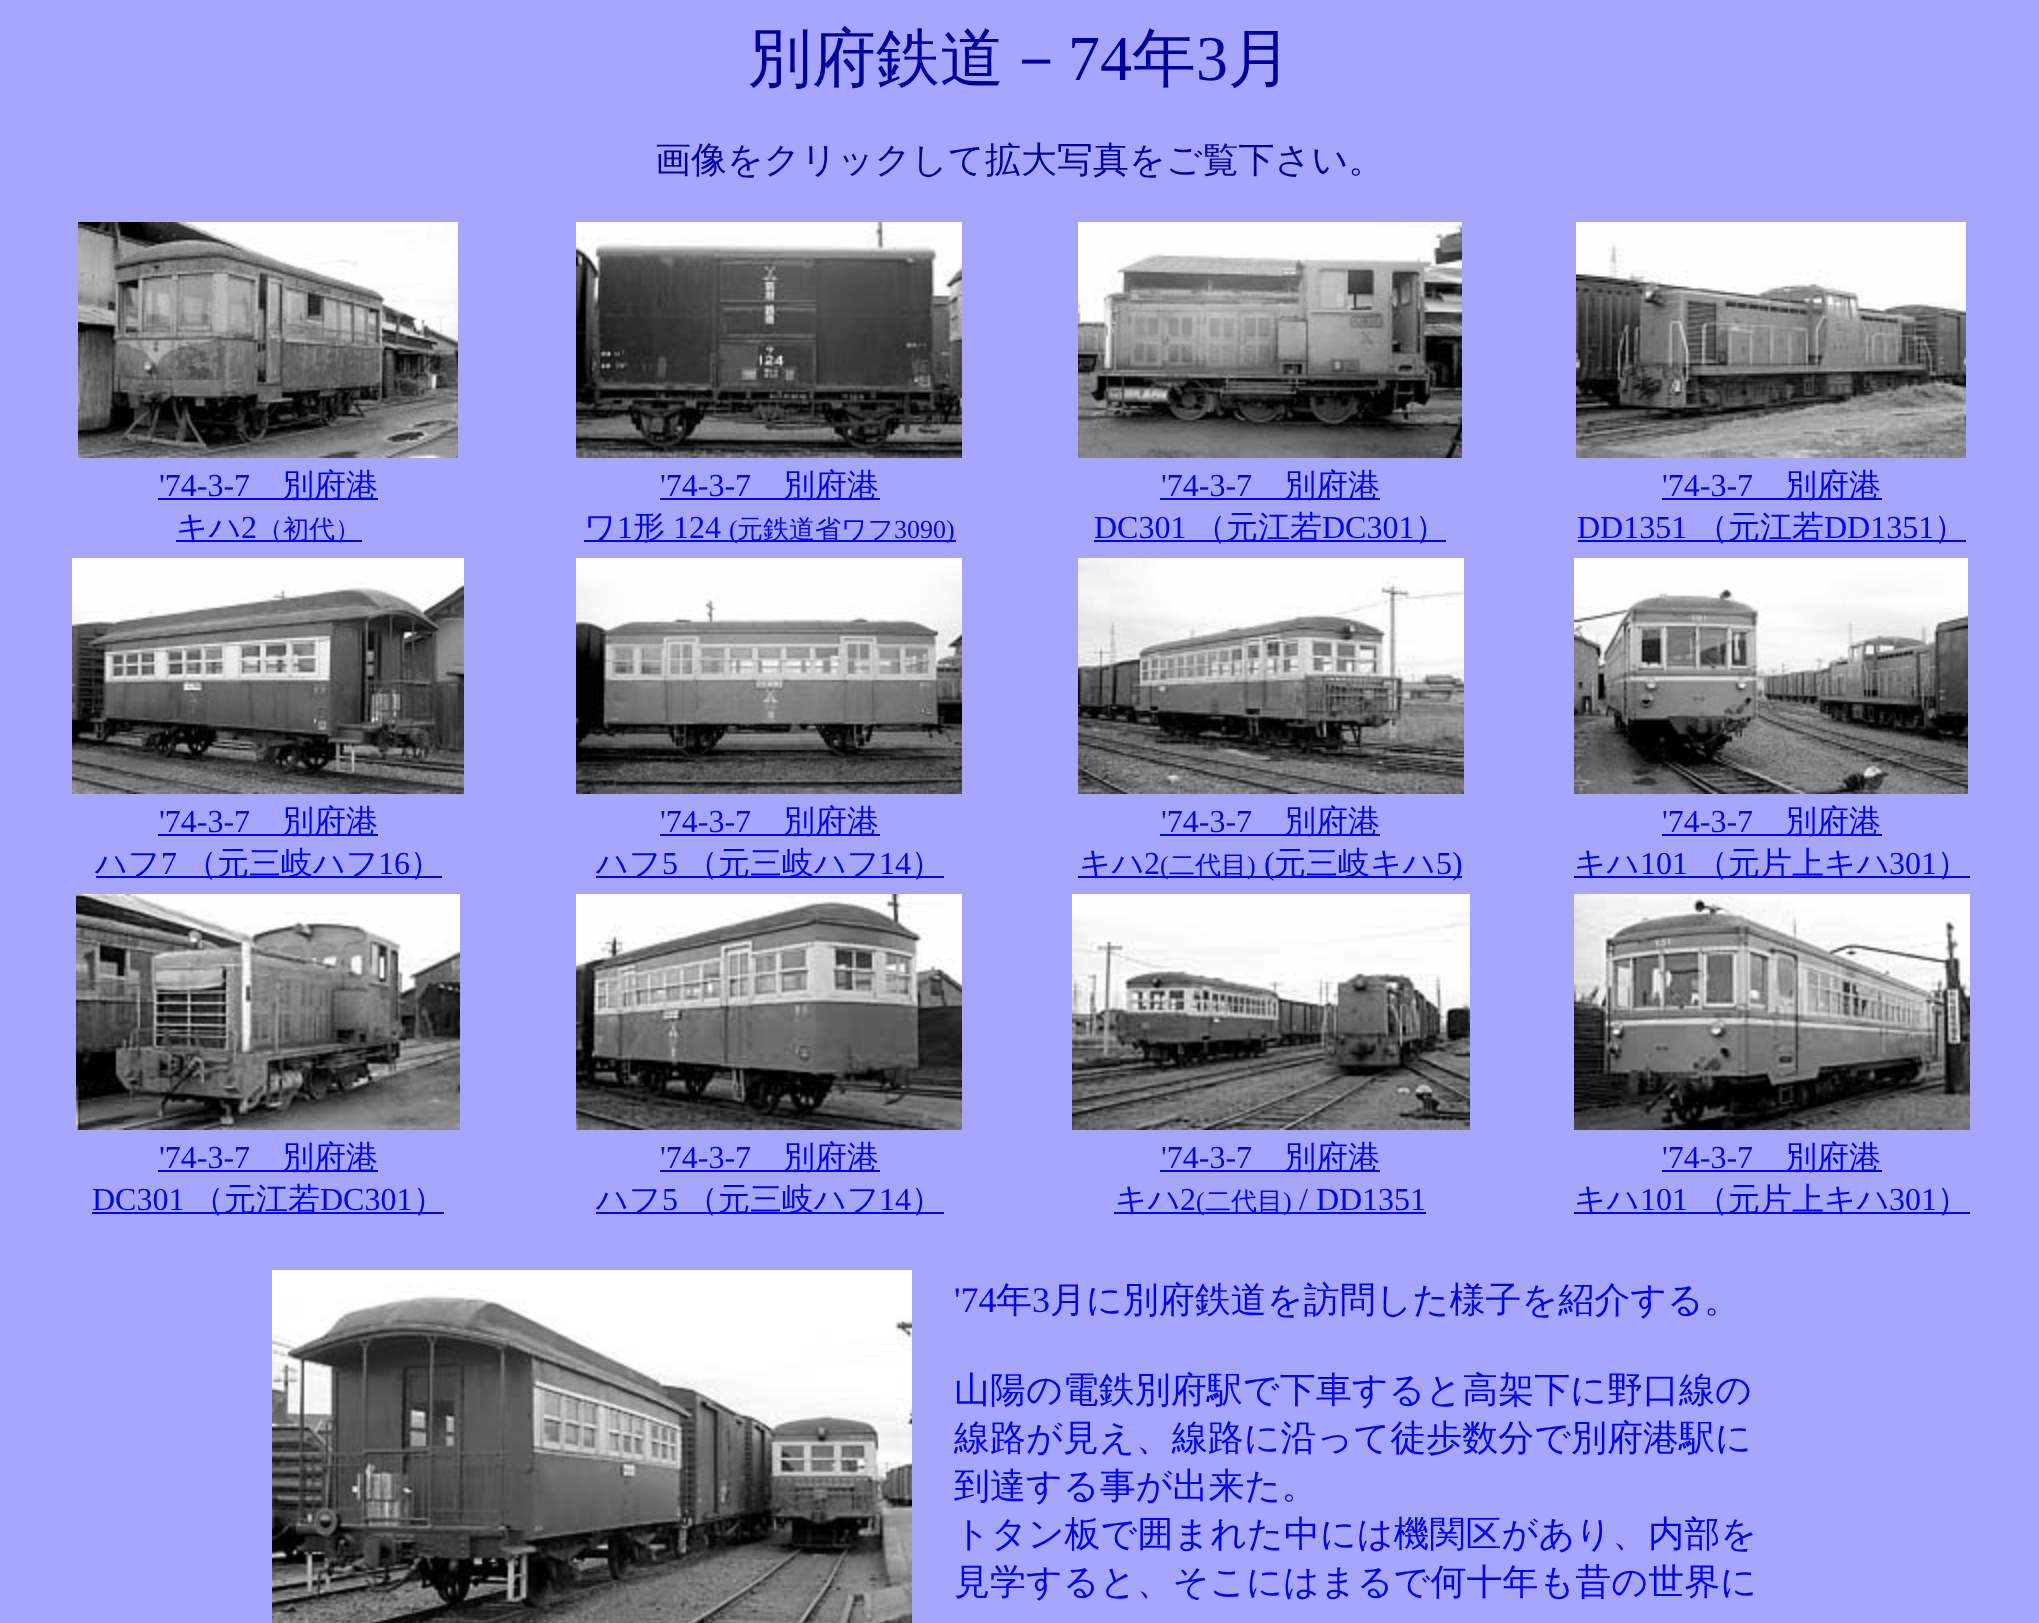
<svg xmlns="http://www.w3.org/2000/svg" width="2039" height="1623">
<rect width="100%" height="100%" fill="#a6a6ff"/>
<text x="748" y="80" style="font-family:WenQuanYi Zen Hei;font-size:64px;font-weight:500;fill:#0000a0">別府鉄道－</text>
<text x="1068" y="80" style="font-family:Liberation Serif;font-size:64px;fill:#0000a0">74</text>
<text x="1132" y="80" style="font-family:WenQuanYi Zen Hei;font-size:64px;font-weight:500;fill:#0000a0">年</text>
<text x="1196" y="80" style="font-family:Liberation Serif;font-size:64px;fill:#0000a0">3</text>
<text x="1228" y="80" style="font-family:WenQuanYi Zen Hei;font-size:64px;font-weight:500;fill:#0000a0">月</text>
<text x="655" y="172" style="font-family:WenQuanYi Zen Hei;font-size:36px;font-weight:500;fill:#0000a0">画像をクリックして拡大写真をご覧下さい。</text>
<image x="78" y="222" width="380" height="236" href="media/1.png"/>
<image x="576" y="222" width="386" height="236" href="media/2.png"/>
<image x="1078" y="222" width="384" height="236" href="media/3.png"/>
<image x="1576" y="222" width="390" height="236" href="media/4.png"/>
<text x="159" y="496" style="font-family:Liberation Serif;font-size:32px;fill:#00f">'74-3-7</text>
<rect x="158" y="498" width="220" height="2" fill="#00f"/>
<text x="282" y="496" style="font-family:WenQuanYi Zen Hei;font-size:32px;font-weight:500;fill:#00f">別府港</text>
<rect x="176" y="540" width="186" height="2" fill="#00f"/>
<text x="176" y="538" style="font-family:WenQuanYi Zen Hei;font-size:32px;font-weight:500;fill:#00f">キハ</text>
<text x="241" y="538" style="font-family:Liberation Serif;font-size:32px;fill:#00f">2</text>
<text x="257" y="538" style="font-family:WenQuanYi Zen Hei;font-size:26px;font-weight:500;fill:#00f">（初代）</text>
<text x="660" y="496" style="font-family:Liberation Serif;font-size:32px;fill:#00f">'74-3-7</text>
<rect x="660" y="498" width="220" height="2" fill="#00f"/>
<text x="783" y="496" style="font-family:WenQuanYi Zen Hei;font-size:32px;font-weight:500;fill:#00f">別府港</text>
<rect x="584" y="540" width="372" height="2" fill="#00f"/>
<text x="584" y="538" style="font-family:WenQuanYi Zen Hei;font-size:32px;font-weight:500;fill:#00f">ワ</text>
<text x="617" y="538" style="font-family:Liberation Serif;font-size:32px;fill:#00f">1</text>
<text x="633" y="538" style="font-family:WenQuanYi Zen Hei;font-size:32px;font-weight:500;fill:#00f">形</text>
<text x="673" y="538" style="font-family:Liberation Serif;font-size:32px;fill:#00f">124</text>
<text x="729" y="538" style="font-family:Liberation Serif;font-size:26px;fill:#00f">(</text>
<text x="737" y="538" style="font-family:WenQuanYi Zen Hei;font-size:26px;font-weight:500;fill:#00f">元鉄道省ワフ</text>
<text x="894" y="538" style="font-family:Liberation Serif;font-size:26px;fill:#00f">3090)</text>
<text x="1161" y="496" style="font-family:Liberation Serif;font-size:32px;fill:#00f">'74-3-7</text>
<rect x="1160" y="498" width="220" height="2" fill="#00f"/>
<text x="1284" y="496" style="font-family:WenQuanYi Zen Hei;font-size:32px;font-weight:500;fill:#00f">別府港</text>
<text x="1094" y="538" style="font-family:Liberation Serif;font-size:32px;fill:#00f">DC301</text>
<rect x="1094" y="540" width="352" height="2" fill="#00f"/>
<text x="1194" y="538" style="font-family:WenQuanYi Zen Hei;font-size:32px;font-weight:500;fill:#00f">（元江若</text>
<text x="1322" y="538" style="font-family:Liberation Serif;font-size:32px;fill:#00f">DC301</text>
<text x="1415" y="538" style="font-family:WenQuanYi Zen Hei;font-size:32px;font-weight:500;fill:#00f">）</text>
<text x="1662" y="496" style="font-family:Liberation Serif;font-size:32px;fill:#00f">'74-3-7</text>
<rect x="1662" y="498" width="220" height="2" fill="#00f"/>
<text x="1785" y="496" style="font-family:WenQuanYi Zen Hei;font-size:32px;font-weight:500;fill:#00f">別府港</text>
<text x="1577" y="538" style="font-family:Liberation Serif;font-size:32px;fill:#00f">DD1351</text>
<rect x="1578" y="540" width="388" height="2" fill="#00f"/>
<text x="1696" y="538" style="font-family:WenQuanYi Zen Hei;font-size:32px;font-weight:500;fill:#00f">（元江若</text>
<text x="1824" y="538" style="font-family:Liberation Serif;font-size:32px;fill:#00f">DD1351</text>
<text x="1934" y="538" style="font-family:WenQuanYi Zen Hei;font-size:32px;font-weight:500;fill:#00f">）</text>
<image x="72" y="558" width="392" height="236" href="media/5.png"/>
<image x="576" y="558" width="386" height="236" href="media/6.png"/>
<image x="1078" y="558" width="386" height="236" href="media/7.png"/>
<image x="1574" y="558" width="394" height="236" href="media/8.png"/>
<text x="159" y="832" style="font-family:Liberation Serif;font-size:32px;fill:#00f">'74-3-7</text>
<rect x="158" y="834" width="220" height="2" fill="#00f"/>
<text x="282" y="832" style="font-family:WenQuanYi Zen Hei;font-size:32px;font-weight:500;fill:#00f">別府港</text>
<rect x="96" y="876" width="346" height="2" fill="#00f"/>
<text x="95" y="874" style="font-family:WenQuanYi Zen Hei;font-size:32px;font-weight:500;fill:#00f">ハフ</text>
<text x="161" y="874" style="font-family:Liberation Serif;font-size:32px;fill:#00f">7</text>
<text x="185" y="874" style="font-family:WenQuanYi Zen Hei;font-size:32px;font-weight:500;fill:#00f">（元三岐ハフ</text>
<text x="378" y="874" style="font-family:Liberation Serif;font-size:32px;fill:#00f">16</text>
<text x="410" y="874" style="font-family:WenQuanYi Zen Hei;font-size:32px;font-weight:500;fill:#00f">）</text>
<text x="660" y="832" style="font-family:Liberation Serif;font-size:32px;fill:#00f">'74-3-7</text>
<rect x="660" y="834" width="220" height="2" fill="#00f"/>
<text x="783" y="832" style="font-family:WenQuanYi Zen Hei;font-size:32px;font-weight:500;fill:#00f">別府港</text>
<rect x="596" y="876" width="348" height="2" fill="#00f"/>
<text x="596" y="874" style="font-family:WenQuanYi Zen Hei;font-size:32px;font-weight:500;fill:#00f">ハフ</text>
<text x="662" y="874" style="font-family:Liberation Serif;font-size:32px;fill:#00f">5</text>
<text x="686" y="874" style="font-family:WenQuanYi Zen Hei;font-size:32px;font-weight:500;fill:#00f">（元三岐ハフ</text>
<text x="879" y="874" style="font-family:Liberation Serif;font-size:32px;fill:#00f">14</text>
<text x="911" y="874" style="font-family:WenQuanYi Zen Hei;font-size:32px;font-weight:500;fill:#00f">）</text>
<text x="1161" y="832" style="font-family:Liberation Serif;font-size:32px;fill:#00f">'74-3-7</text>
<rect x="1160" y="834" width="220" height="2" fill="#00f"/>
<text x="1284" y="832" style="font-family:WenQuanYi Zen Hei;font-size:32px;font-weight:500;fill:#00f">別府港</text>
<rect x="1078" y="876" width="384" height="2" fill="#00f"/>
<text x="1079" y="874" style="font-family:WenQuanYi Zen Hei;font-size:32px;font-weight:500;fill:#00f">キハ</text>
<text x="1144" y="874" style="font-family:Liberation Serif;font-size:32px;fill:#00f">2</text>
<text x="1160" y="874" style="font-family:Liberation Serif;font-size:26px;fill:#00f">(</text>
<text x="1169" y="874" style="font-family:WenQuanYi Zen Hei;font-size:26px;font-weight:500;fill:#00f">二代目</text>
<text x="1247" y="874" style="font-family:Liberation Serif;font-size:26px;fill:#00f">)</text>
<text x="1264" y="874" style="font-family:Liberation Serif;font-size:32px;fill:#00f">(</text>
<text x="1274" y="874" style="font-family:WenQuanYi Zen Hei;font-size:32px;font-weight:500;fill:#00f">元三岐キハ</text>
<text x="1436" y="874" style="font-family:Liberation Serif;font-size:32px;fill:#00f">5)</text>
<text x="1662" y="832" style="font-family:Liberation Serif;font-size:32px;fill:#00f">'74-3-7</text>
<rect x="1662" y="834" width="220" height="2" fill="#00f"/>
<text x="1785" y="832" style="font-family:WenQuanYi Zen Hei;font-size:32px;font-weight:500;fill:#00f">別府港</text>
<rect x="1574" y="876" width="396" height="2" fill="#00f"/>
<text x="1574" y="874" style="font-family:WenQuanYi Zen Hei;font-size:32px;font-weight:500;fill:#00f">キハ</text>
<text x="1640" y="874" style="font-family:Liberation Serif;font-size:32px;fill:#00f">101</text>
<text x="1696" y="874" style="font-family:WenQuanYi Zen Hei;font-size:32px;font-weight:500;fill:#00f">（元片上キハ</text>
<text x="1889" y="874" style="font-family:Liberation Serif;font-size:32px;fill:#00f">301</text>
<text x="1937" y="874" style="font-family:WenQuanYi Zen Hei;font-size:32px;font-weight:500;fill:#00f">）</text>
<image x="76" y="894" width="384" height="236" href="media/9.png"/>
<image x="576" y="894" width="386" height="236" href="media/10.png"/>
<image x="1072" y="894" width="398" height="236" href="media/11.png"/>
<image x="1574" y="894" width="396" height="236" href="media/12.png"/>
<text x="159" y="1168" style="font-family:Liberation Serif;font-size:32px;fill:#00f">'74-3-7</text>
<rect x="158" y="1170" width="220" height="2" fill="#00f"/>
<text x="282" y="1168" style="font-family:WenQuanYi Zen Hei;font-size:32px;font-weight:500;fill:#00f">別府港</text>
<text x="92" y="1210" style="font-family:Liberation Serif;font-size:32px;fill:#00f">DC301</text>
<rect x="92" y="1212" width="352" height="2" fill="#00f"/>
<text x="192" y="1210" style="font-family:WenQuanYi Zen Hei;font-size:32px;font-weight:500;fill:#00f">（元江若</text>
<text x="320" y="1210" style="font-family:Liberation Serif;font-size:32px;fill:#00f">DC301</text>
<text x="413" y="1210" style="font-family:WenQuanYi Zen Hei;font-size:32px;font-weight:500;fill:#00f">）</text>
<text x="660" y="1168" style="font-family:Liberation Serif;font-size:32px;fill:#00f">'74-3-7</text>
<rect x="660" y="1170" width="220" height="2" fill="#00f"/>
<text x="783" y="1168" style="font-family:WenQuanYi Zen Hei;font-size:32px;font-weight:500;fill:#00f">別府港</text>
<rect x="596" y="1212" width="348" height="2" fill="#00f"/>
<text x="596" y="1210" style="font-family:WenQuanYi Zen Hei;font-size:32px;font-weight:500;fill:#00f">ハフ</text>
<text x="662" y="1210" style="font-family:Liberation Serif;font-size:32px;fill:#00f">5</text>
<text x="686" y="1210" style="font-family:WenQuanYi Zen Hei;font-size:32px;font-weight:500;fill:#00f">（元三岐ハフ</text>
<text x="879" y="1210" style="font-family:Liberation Serif;font-size:32px;fill:#00f">14</text>
<text x="911" y="1210" style="font-family:WenQuanYi Zen Hei;font-size:32px;font-weight:500;fill:#00f">）</text>
<text x="1161" y="1168" style="font-family:Liberation Serif;font-size:32px;fill:#00f">'74-3-7</text>
<rect x="1160" y="1170" width="220" height="2" fill="#00f"/>
<text x="1284" y="1168" style="font-family:WenQuanYi Zen Hei;font-size:32px;font-weight:500;fill:#00f">別府港</text>
<rect x="1114" y="1212" width="312" height="2" fill="#00f"/>
<text x="1115" y="1210" style="font-family:WenQuanYi Zen Hei;font-size:32px;font-weight:500;fill:#00f">キハ</text>
<text x="1180" y="1210" style="font-family:Liberation Serif;font-size:32px;fill:#00f">2</text>
<text x="1196" y="1210" style="font-family:Liberation Serif;font-size:26px;fill:#00f">(</text>
<text x="1205" y="1210" style="font-family:WenQuanYi Zen Hei;font-size:26px;font-weight:500;fill:#00f">二代目</text>
<text x="1283" y="1210" style="font-family:Liberation Serif;font-size:26px;fill:#00f">)</text>
<text x="1299" y="1210" style="font-family:Liberation Serif;font-size:32px;fill:#00f">/ DD1351</text>
<text x="1662" y="1168" style="font-family:Liberation Serif;font-size:32px;fill:#00f">'74-3-7</text>
<rect x="1662" y="1170" width="220" height="2" fill="#00f"/>
<text x="1785" y="1168" style="font-family:WenQuanYi Zen Hei;font-size:32px;font-weight:500;fill:#00f">別府港</text>
<rect x="1574" y="1212" width="396" height="2" fill="#00f"/>
<text x="1574" y="1210" style="font-family:WenQuanYi Zen Hei;font-size:32px;font-weight:500;fill:#00f">キハ</text>
<text x="1640" y="1210" style="font-family:Liberation Serif;font-size:32px;fill:#00f">101</text>
<text x="1696" y="1210" style="font-family:WenQuanYi Zen Hei;font-size:32px;font-weight:500;fill:#00f">（元片上キハ</text>
<text x="1889" y="1210" style="font-family:Liberation Serif;font-size:32px;fill:#00f">301</text>
<text x="1937" y="1210" style="font-family:WenQuanYi Zen Hei;font-size:32px;font-weight:500;fill:#00f">）</text>
<image x="272" y="1270" width="640" height="353" href="media/13.png"/>
<text x="954" y="1312" style="font-family:Liberation Serif;font-size:36px;fill:#00f">'74</text>
<text x="996" y="1312" style="font-family:WenQuanYi Zen Hei;font-size:36px;font-weight:500;fill:#00f">年</text>
<text x="1032" y="1312" style="font-family:Liberation Serif;font-size:36px;fill:#00f">3</text>
<text x="1050" y="1312" style="font-family:WenQuanYi Zen Hei;font-size:36px;font-weight:500;fill:#00f">月に別府鉄道を訪問した様子を紹介する。</text>
<text x="954" y="1402" style="font-family:WenQuanYi Zen Hei;font-size:36px;font-weight:500;fill:#00f">山陽の電鉄別府駅で下車すると高架下に野口線の</text>
<text x="954" y="1450" style="font-family:WenQuanYi Zen Hei;font-size:36px;font-weight:500;fill:#00f">線路が見え、線路に沿って徒歩数分で別府港駅に</text>
<text x="954" y="1498" style="font-family:WenQuanYi Zen Hei;font-size:36px;font-weight:500;fill:#00f">到達する事が出来た。</text>
<text x="954" y="1546" style="font-family:WenQuanYi Zen Hei;font-size:36px;font-weight:500;fill:#00f">トタン板で囲まれた中には機関区があり、内部を</text>
<text x="954" y="1594" style="font-family:WenQuanYi Zen Hei;font-size:36px;font-weight:500;fill:#00f">見学すると、そこにはまるで何十年も昔の世界に</text>
</svg>
